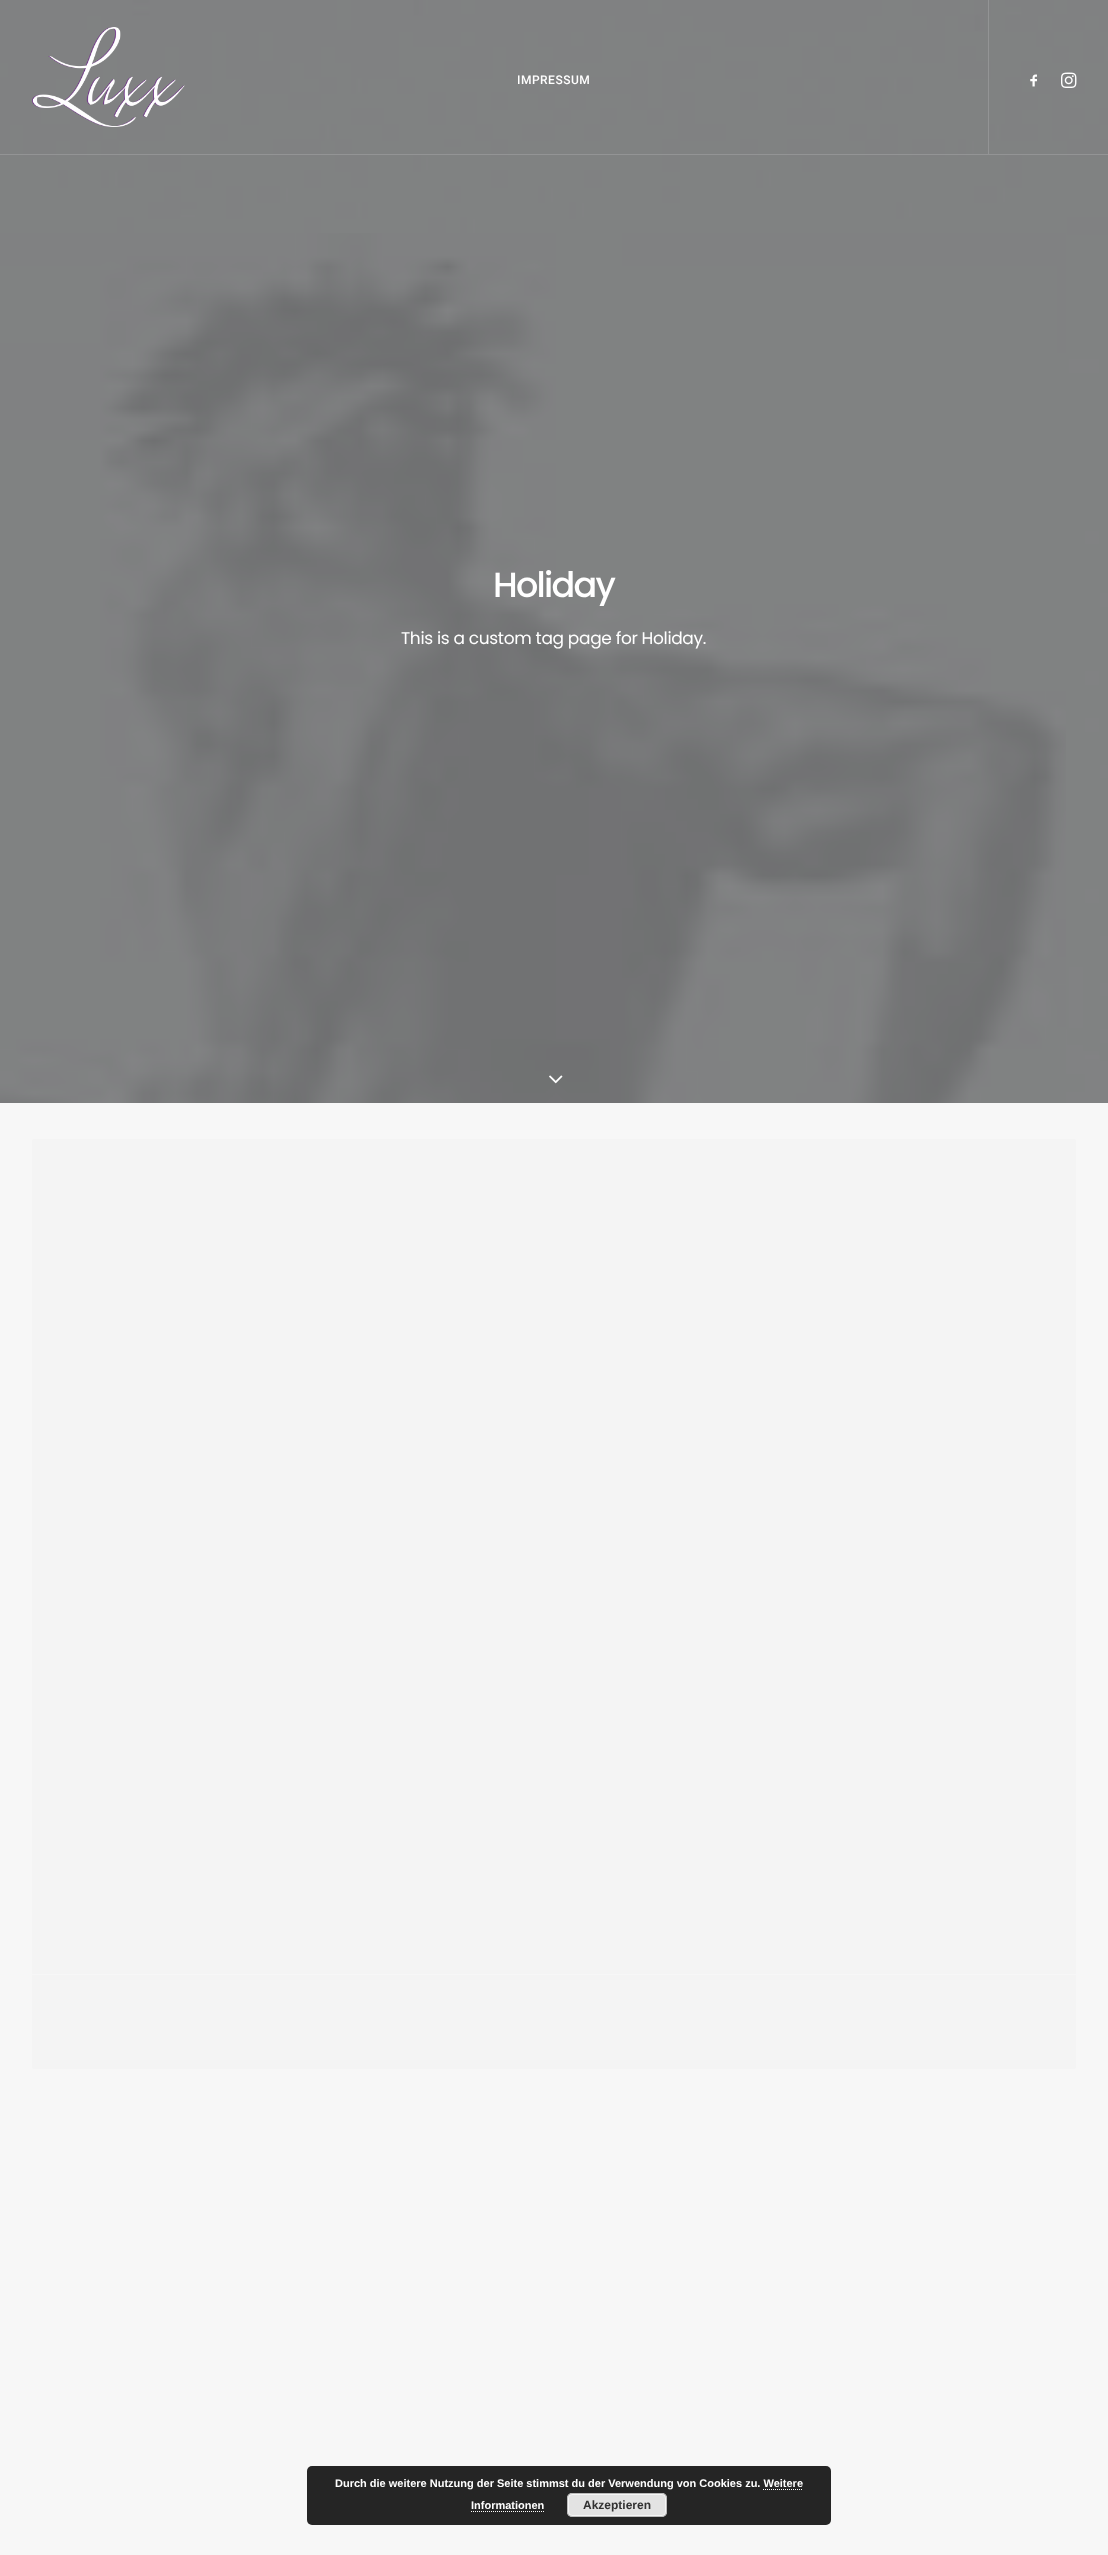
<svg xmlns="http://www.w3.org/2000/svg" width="1108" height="2555">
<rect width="100%" height="100%" fill="#fff"/>
<image x="0" y="0" width="1108" height="1103" href="media/4.png"/>
<rect y="154" width="1108" height="1" fill="#939495"/>
<image x="32" y="27" width="153" height="100" href="media/1.png"/>
<text x="517" y="84" style="font-family:Roboto;font-size:12px;font-weight:500;letter-spacing:0.5px;fill:#fff">IMPRESSUM</text>
<rect x="988" width="1" height="154" fill="#939495"/>
<image x="1030" y="74" width="7" height="13" href="media/2.png"/>
<image x="1061" y="72" width="16" height="16" href="media/3.png"/>
<image x="0" y="233" width="1066" height="870" href="media/5.png"/>
<text x="493" y="597" style="font-family:Poppins;font-size:35px;font-weight:500;letter-spacing:-1.75px;fill:#fff">Holiday</text>
<text x="401" y="644" style="font-family:Poppins;font-size:17px;letter-spacing:-0.35px;fill:#fff">This is a custom tag page for Holiday.</text>
<image x="549" y="1075" width="14" height="9" href="media/6.png"/>
<rect y="1103" width="1108" height="1452" fill="#f7f7f7"/>
<rect x="32" y="1139" width="1044" height="930" rx="2" fill="#f4f4f4"/>
<rect x="32" y="1974" width="1044" height="1" fill="#f7f7f7"/>
<rect x="307" y="2466" width="524" height="59" rx="5" fill="#252525"/>
<text x="335" y="2487" style="font-family:Liberation Sans;font-size:11px;font-weight:bold;fill:#fff">Durch die weitere Nutzung der Seite stimmst du der Verwendung von Cookies zu. Weitere</text>
<text x="471" y="2509" style="font-family:Liberation Sans;font-size:11px;font-weight:bold;fill:#fff">Informationen</text>
<path d="M763 2489.5h40" fill="none" stroke="#fff" stroke-dasharray="1 1"/>
<path d="M471 2511.5h73" fill="none" stroke="#fff" stroke-dasharray="1 1"/>
<rect x="567" y="2493" width="100" height="24" rx="5" fill="#e3e3e3"/>
<rect x="568.5" y="2494.5" width="97" height="21" rx="3.5" fill="none" stroke="#f6f6f6"/>
<rect x="567.5" y="2493.5" width="99" height="23" rx="4.5" fill="none" stroke="#bbb"/>
<text x="583" y="2509" style="font-family:Liberation Sans;font-size:12px;font-weight:bold;fill:#333">Akzeptieren</text>
</svg>
